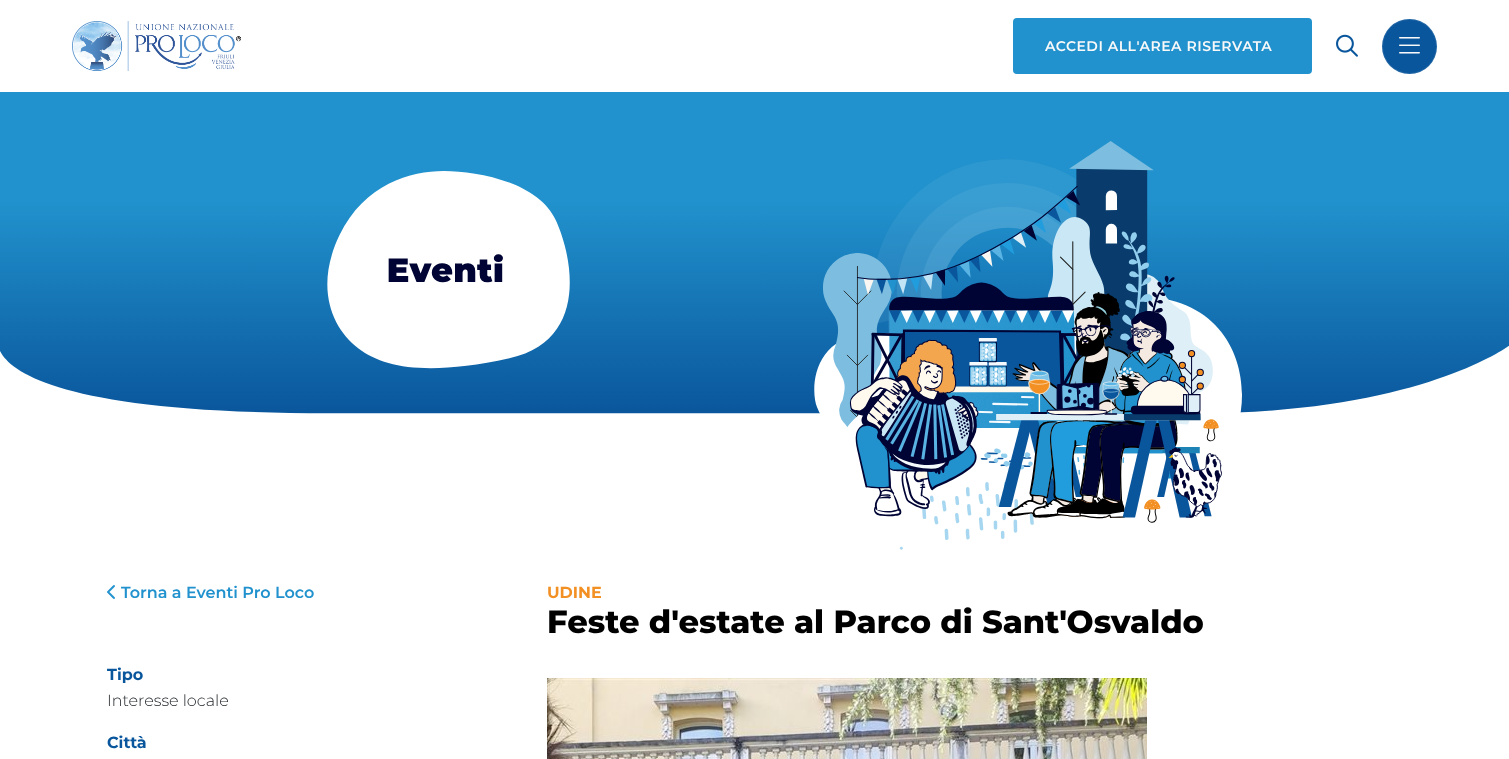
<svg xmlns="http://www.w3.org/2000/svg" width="1509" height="759">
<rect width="100%" height="100%" fill="#fff"/>
<image x="72" y="21" width="169" height="50" href="media/1.png"/>
<rect x="1013" y="18" width="299" height="56" rx="4" fill="#2192cd"/>
<text x="1045" y="51" style="font-family:Montserrat;font-size:14px;font-weight:600;letter-spacing:0.5px;fill:#f9f9f9">ACCEDI ALL'AREA RISERVATA</text>
<image x="1336" y="34" width="22" height="23" href="media/2.png"/>
<circle cx="1409.5" cy="46.5" r="27.5" fill="#0a569c"/>
<circle cx="1409.5" cy="46.5" r="27" fill="none" stroke="#ffffff1a"/>
<image x="1399" y="37" width="21" height="17" href="media/3.png"/>
<image x="0" y="92" width="1509" height="458" href="media/4.png"/>
<image x="107" y="585" width="8" height="14" href="media/5.png"/>
<text x="121" y="598" style="font-family:Montserrat;font-size:16px;font-weight:600;fill:#2192cd">Torna a Eventi Pro Loco</text>
<text x="107" y="680" style="font-family:Montserrat;font-size:16px;font-weight:bold;fill:#0a569c">Tipo</text>
<text x="107" y="706" style="font-family:Montserrat;font-size:16px;font-weight:300;fill:#212529">Interesse locale</text>
<text x="107" y="748" style="font-family:Montserrat;font-size:16px;font-weight:bold;fill:#0a569c">Città</text>
<text x="547" y="598" style="font-family:Montserrat;font-size:16px;font-weight:bold;fill:#f29024">UDINE</text>
<text x="547" y="633" style="font-family:Montserrat;font-size:32px;font-weight:800;fill:#000">Feste d'estate al Parco di Sant'Osvaldo</text>
<image x="547" y="678" width="600" height="81" href="media/6.png"/>
</svg>
